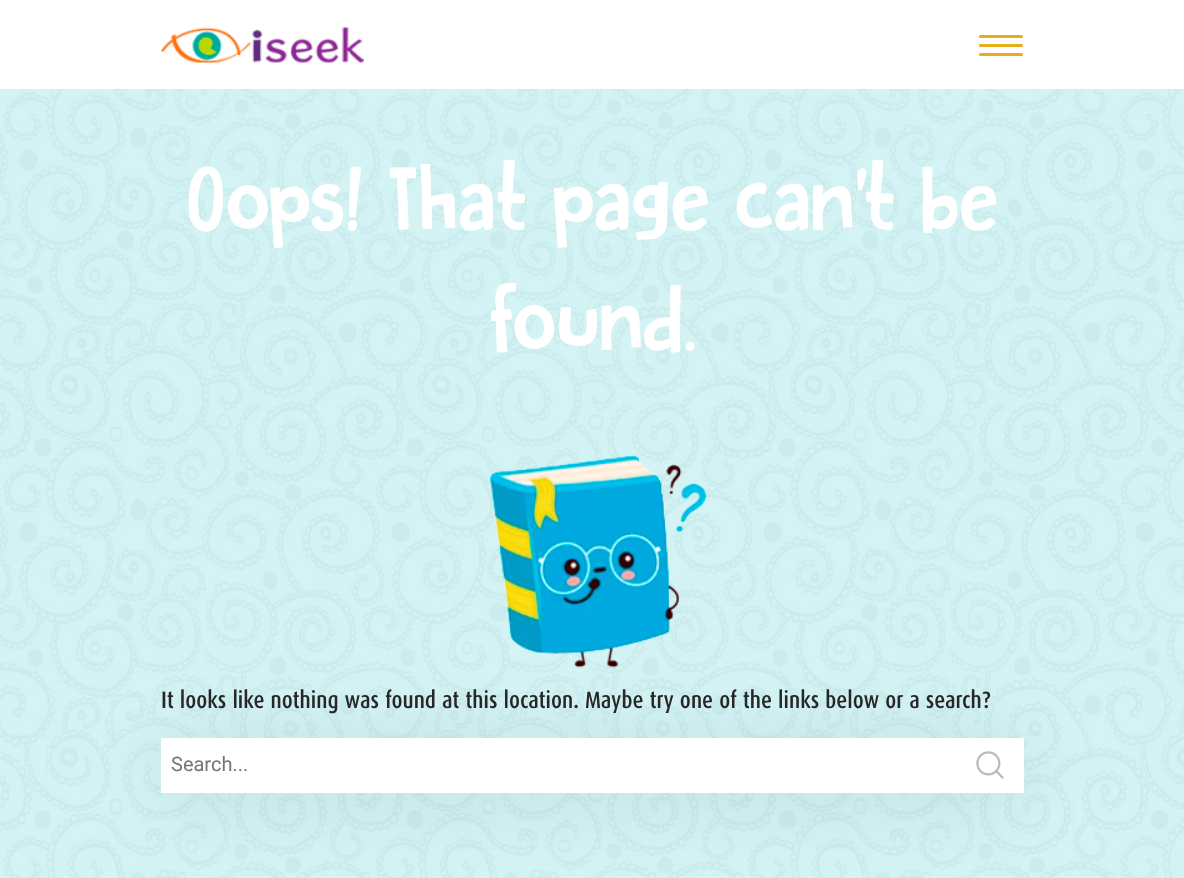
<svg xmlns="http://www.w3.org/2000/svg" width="1184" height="878">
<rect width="100%" height="100%" fill="#fff"/>
<image x="0" y="89" width="1184" height="789" href="media/1.png"/>
<image x="161" y="27" width="203" height="36" href="media/2.png"/>
<rect x="979" y="35" width="44" height="3" rx="1.5" fill="#e8ad1a"/>
<rect x="979" y="44" width="44" height="3" rx="1.5" fill="#e8ad1a"/>
<rect x="979" y="53" width="44" height="3" rx="1.5" fill="#e8ad1a"/>
<text x="186" y="230" style="font-family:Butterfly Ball;font-size:80px;fill:#fff">Oops! That page can’t be</text>
<text x="489" y="350" style="font-family:Butterfly Ball;font-size:80px;fill:#fff">found.</text>
<image x="489" y="447" width="231" height="221" href="media/3.png"/>
<text x="161" y="708" style="font-family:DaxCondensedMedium;font-size:23.75px;font-weight:500;fill:#282828">It looks like nothing was found at this location. Maybe try one of the links below or a search?</text>
<rect x="161" y="744" width="863" height="55" fill="#00000014" filter="blur(37.5px)"/>
<rect x="161" y="738" width="863" height="55" fill="#fff"/>
<text x="171" y="771" style="font-family:Roboto;font-size:20px;fill:#757575">Search...</text>
<image x="976" y="751" width="28" height="28" href="media/4.png"/>
</svg>
